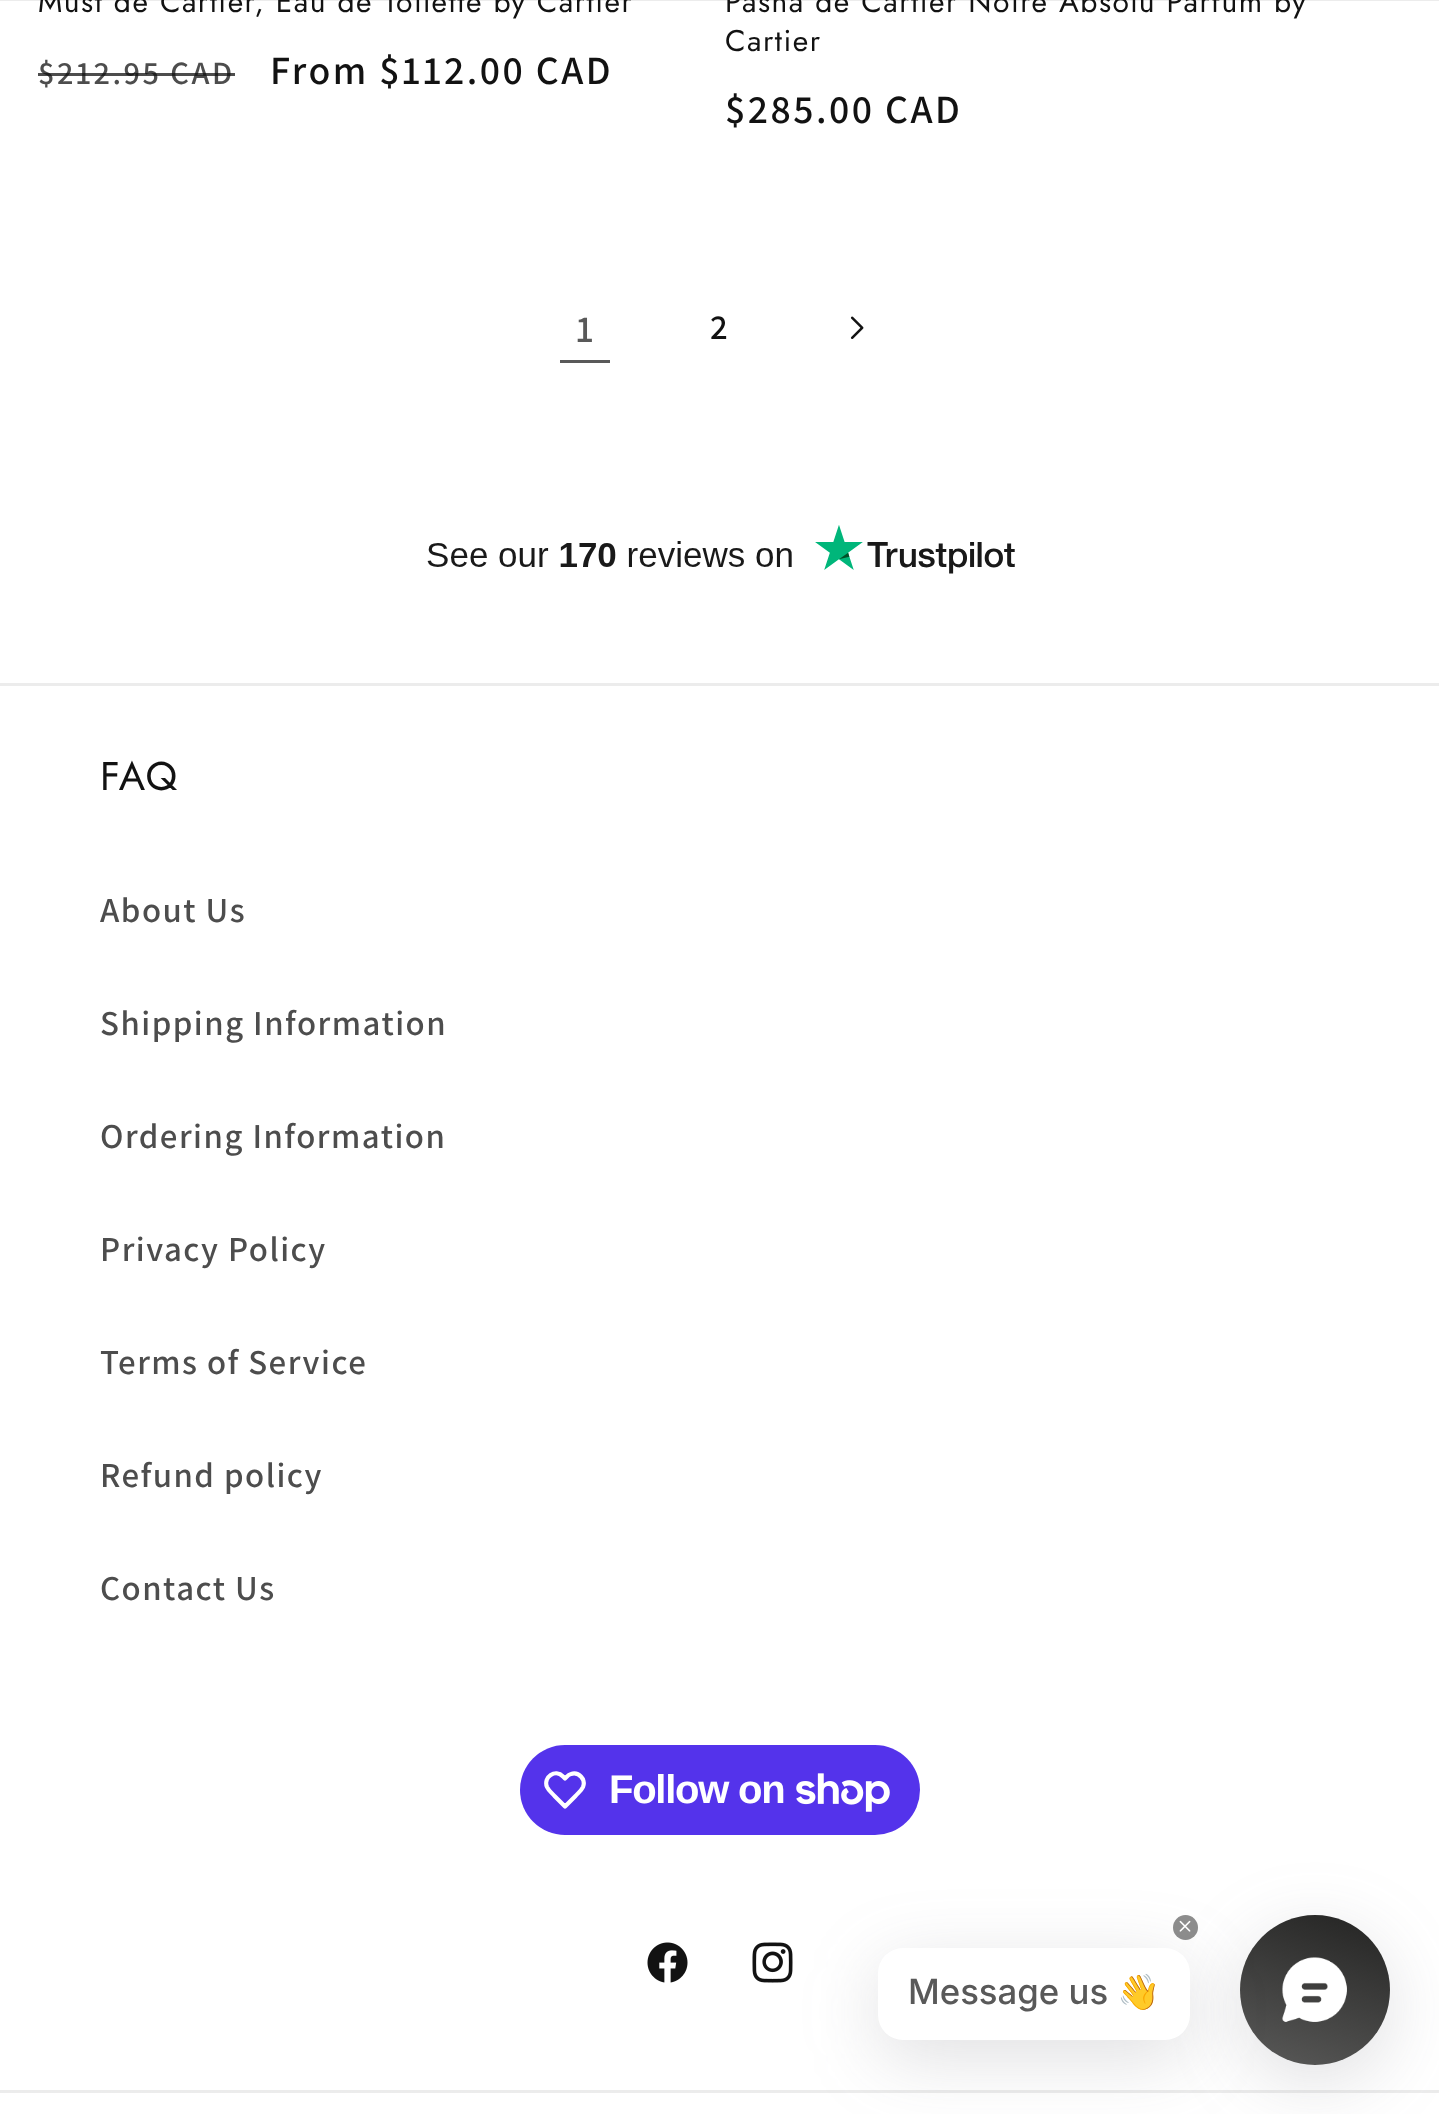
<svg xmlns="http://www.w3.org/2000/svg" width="1439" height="2114">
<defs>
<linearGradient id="g1" gradientUnits="userSpaceOnUse" x1="1346" y1="1900" x2="1284" y2="2080"><stop offset="0" stop-color="#232322"/><stop offset="1" stop-color="#5a5a59"/></linearGradient>
</defs>
<rect width="100%" height="100%" fill="#fff"/>
<rect width="1439" height="1" fill="#12121214"/>
<text x="38" y="12" style="font-family:Jost;font-size:30px;letter-spacing:1.5px;fill:#121212">Must de Cartier, Eau de Toilette by Cartier</text>
<text x="38" y="84" style="font-family:Assistant;font-size:32.5px;font-weight:600;letter-spacing:2.5px;fill:#4d4d4d">$212.95 CAD</text>
<rect x="38" y="73" width="197" height="3" fill="#121212bf"/>
<text x="270" y="84" style="font-family:Assistant;font-size:40px;font-weight:600;letter-spacing:2.5px;fill:#121212">From $112.00 CAD</text>
<text x="725" y="12" style="font-family:Jost;font-size:30px;letter-spacing:1.5px;fill:#121212">Pasha de Cartier Noire Absolu Parfum by</text>
<text x="725" y="51" style="font-family:Jost;font-size:30px;letter-spacing:1.5px;fill:#121212">Cartier</text>
<text x="725" y="123" style="font-family:Assistant;font-size:40px;font-weight:600;letter-spacing:2.5px;fill:#121212">$285.00 CAD</text>
<text x="576" y="342" style="font-family:Assistant;font-size:38px;font-weight:600;letter-spacing:1.5px;fill:#595959">1</text>
<rect x="560" y="360" width="50" height="3" fill="#595959"/>
<text x="710" y="339" style="font-family:Assistant;font-size:35px;font-weight:600;letter-spacing:1.5px;fill:#121212">2</text>
<image x="850" y="316" width="14" height="23" href="media/1.png"/>
<image x="427" y="525" width="588" height="49" href="media/2.png"/>
<rect y="683" width="1439" height="3" fill="#ececec"/>
<text x="100" y="790" style="font-family:Jost;font-size:40px;letter-spacing:1.5px;fill:#121212">FAQ</text>
<text x="100" y="922" style="font-family:Assistant;font-size:35px;font-weight:600;letter-spacing:1.5px;fill:#4d4d4d">About Us</text>
<text x="100" y="1035" style="font-family:Assistant;font-size:35px;font-weight:600;letter-spacing:1.5px;fill:#4d4d4d">Shipping Information</text>
<text x="100" y="1148" style="font-family:Assistant;font-size:35px;font-weight:600;letter-spacing:1.5px;fill:#4d4d4d">Ordering Information</text>
<text x="100" y="1261" style="font-family:Assistant;font-size:35px;font-weight:600;letter-spacing:1.5px;fill:#4d4d4d">Privacy Policy</text>
<text x="100" y="1374" style="font-family:Assistant;font-size:35px;font-weight:600;letter-spacing:1.5px;fill:#4d4d4d">Terms of Service</text>
<text x="100" y="1487" style="font-family:Assistant;font-size:35px;font-weight:600;letter-spacing:1.5px;fill:#4d4d4d">Refund policy</text>
<text x="100" y="1600" style="font-family:Assistant;font-size:35px;font-weight:600;letter-spacing:1.5px;fill:#4d4d4d">Contact Us</text>
<rect x="520" y="1745" width="400" height="90" rx="45" fill="#5433eb"/>
<path d="M563 1776.5l2 2c2-2 3.5-4 6-4.5c8-2.5 15 5.5 12 13c-1.5 3.5-5 6-7.5 9l-10.5 10.5l-10.5-10.5c-2.5-3-6-5.5-7.5-9c-4-10 8.5-18.5 16-10.5z" fill="none" stroke="#fff" stroke-width="4.2" stroke-linejoin="round"/>
<text x="609" y="1803" style="font-family:Liberation Sans;font-size:40px;font-weight:bold;letter-spacing:-1.25px;fill:#fff">Follow on</text>
<image x="796" y="1773" width="94" height="39" href="media/3.png"/>
<image x="647" y="1942" width="41" height="41" href="media/4.png"/>
<image x="752" y="1942" width="41" height="41" href="media/5.png"/>
<rect y="2090" width="1439" height="3" fill="#ececec"/>
<rect x="1240" y="1933" width="150" height="150" rx="75" fill="#64646f33" filter="blur(36px)"/>
<circle cx="1315" cy="1990" r="75" fill="url(#g1)"/>
<image x="1282" y="1957" width="65" height="65" href="media/7.png"/>
<rect x="878" y="1965" width="312" height="93" rx="25" fill="#64646f33" filter="blur(36px)"/>
<rect x="878" y="1948" width="312" height="92" rx="25" fill="#fff"/>
<circle cx="1185.5" cy="1927.5" r="12.5" fill="#3030308c"/>
<image x="1179" y="1920" width="12" height="12" href="media/6.png"/>
<text x="908" y="2004" style="font-family:Inter;font-size:34.75px;font-weight:500;fill:#595959">Message us</text>
<text x="1117" y="2004" style="font-family:Noto Color Emoji;font-size:34.75px;fill:#595959">👋</text>
</svg>
